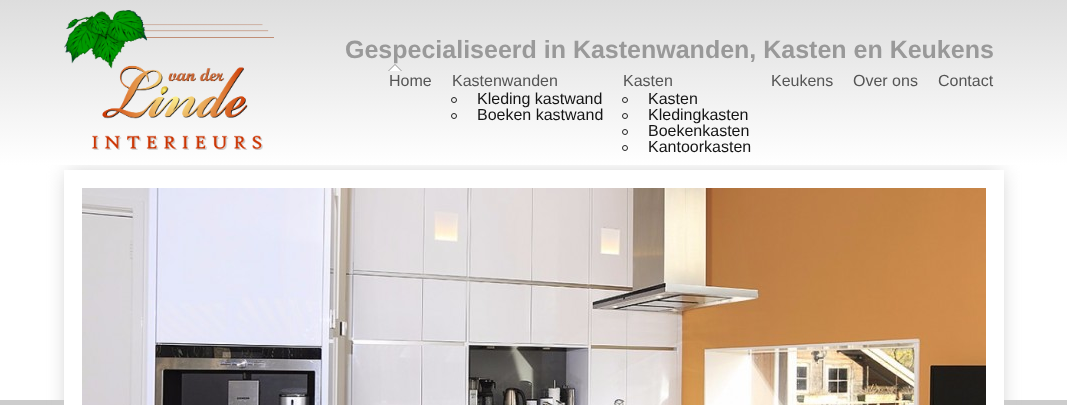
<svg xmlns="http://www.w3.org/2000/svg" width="1067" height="405">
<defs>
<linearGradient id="g1" gradientUnits="userSpaceOnUse" x1="534" y1="0" x2="534" y2="165"><stop offset="0" stop-color="#ddd"/><stop offset="1" stop-color="#fff"/></linearGradient>
</defs>
<rect width="100%" height="100%" fill="#ccc"/>
<rect y="165" width="1067" height="235" fill="#fff"/>
<rect x="67" y="173" width="934" height="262" fill="#ccc" filter="blur(10px)"/>
<rect width="1067" height="165" fill="url(#g1)"/>
<image x="64" y="10" width="210" height="140" href="media/1.png"/>
<text x="345" y="58" style="font-family:Liberation Sans;font-size:25px;font-weight:bold;fill:#999">Gespecialiseerd in Kastenwanden, Kasten en Keukens</text>
<text x="389" y="86" style="font-family:Liberation Sans;font-size:16px;fill:#555">Home</text>
<text x="452" y="86" style="font-family:Liberation Sans;font-size:16px;fill:#555">Kastenwanden</text>
<path d="M402 71h-14l7-7z" fill="#bcbcbc"/>
<circle cx="454" cy="100" r="2.5" fill="none" stroke="#222"/>
<text x="477" y="104" style="font-family:Liberation Sans;font-size:16px;fill:#151515">Kleding kastwand</text>
<circle cx="454" cy="116" r="2.5" fill="none" stroke="#222"/>
<text x="477" y="120" style="font-family:Liberation Sans;font-size:16px;fill:#151515">Boeken kastwand</text>
<text x="623" y="86" style="font-family:Liberation Sans;font-size:16px;fill:#555">Kasten</text>
<path d="M402 71h-14l7-7z" fill="#00000033"/>
<path d="M401 71h-12l6-6z" fill="#fff"/>
<circle cx="625" cy="100" r="2.5" fill="none" stroke="#222"/>
<text x="648" y="104" style="font-family:Liberation Sans;font-size:16px;fill:#151515">Kasten</text>
<circle cx="625" cy="116" r="2.5" fill="none" stroke="#222"/>
<text x="648" y="120" style="font-family:Liberation Sans;font-size:16px;fill:#151515">Kledingkasten</text>
<circle cx="625" cy="132" r="2.5" fill="none" stroke="#222"/>
<text x="648" y="136" style="font-family:Liberation Sans;font-size:16px;fill:#151515">Boekenkasten</text>
<circle cx="625" cy="148" r="2.5" fill="none" stroke="#222"/>
<text x="648" y="152" style="font-family:Liberation Sans;font-size:16px;fill:#151515">Kantoorkasten</text>
<text x="771" y="86" style="font-family:Liberation Sans;font-size:16px;fill:#555">Keukens</text>
<text x="853" y="86" style="font-family:Liberation Sans;font-size:16px;fill:#555">Over ons</text>
<text x="938" y="86" style="font-family:Liberation Sans;font-size:16px;fill:#555">Contact</text>
<rect x="64" y="170" width="940" height="235" fill="#fff"/>
<image x="82" y="188" width="904" height="217" href="media/2.png"/>
</svg>
